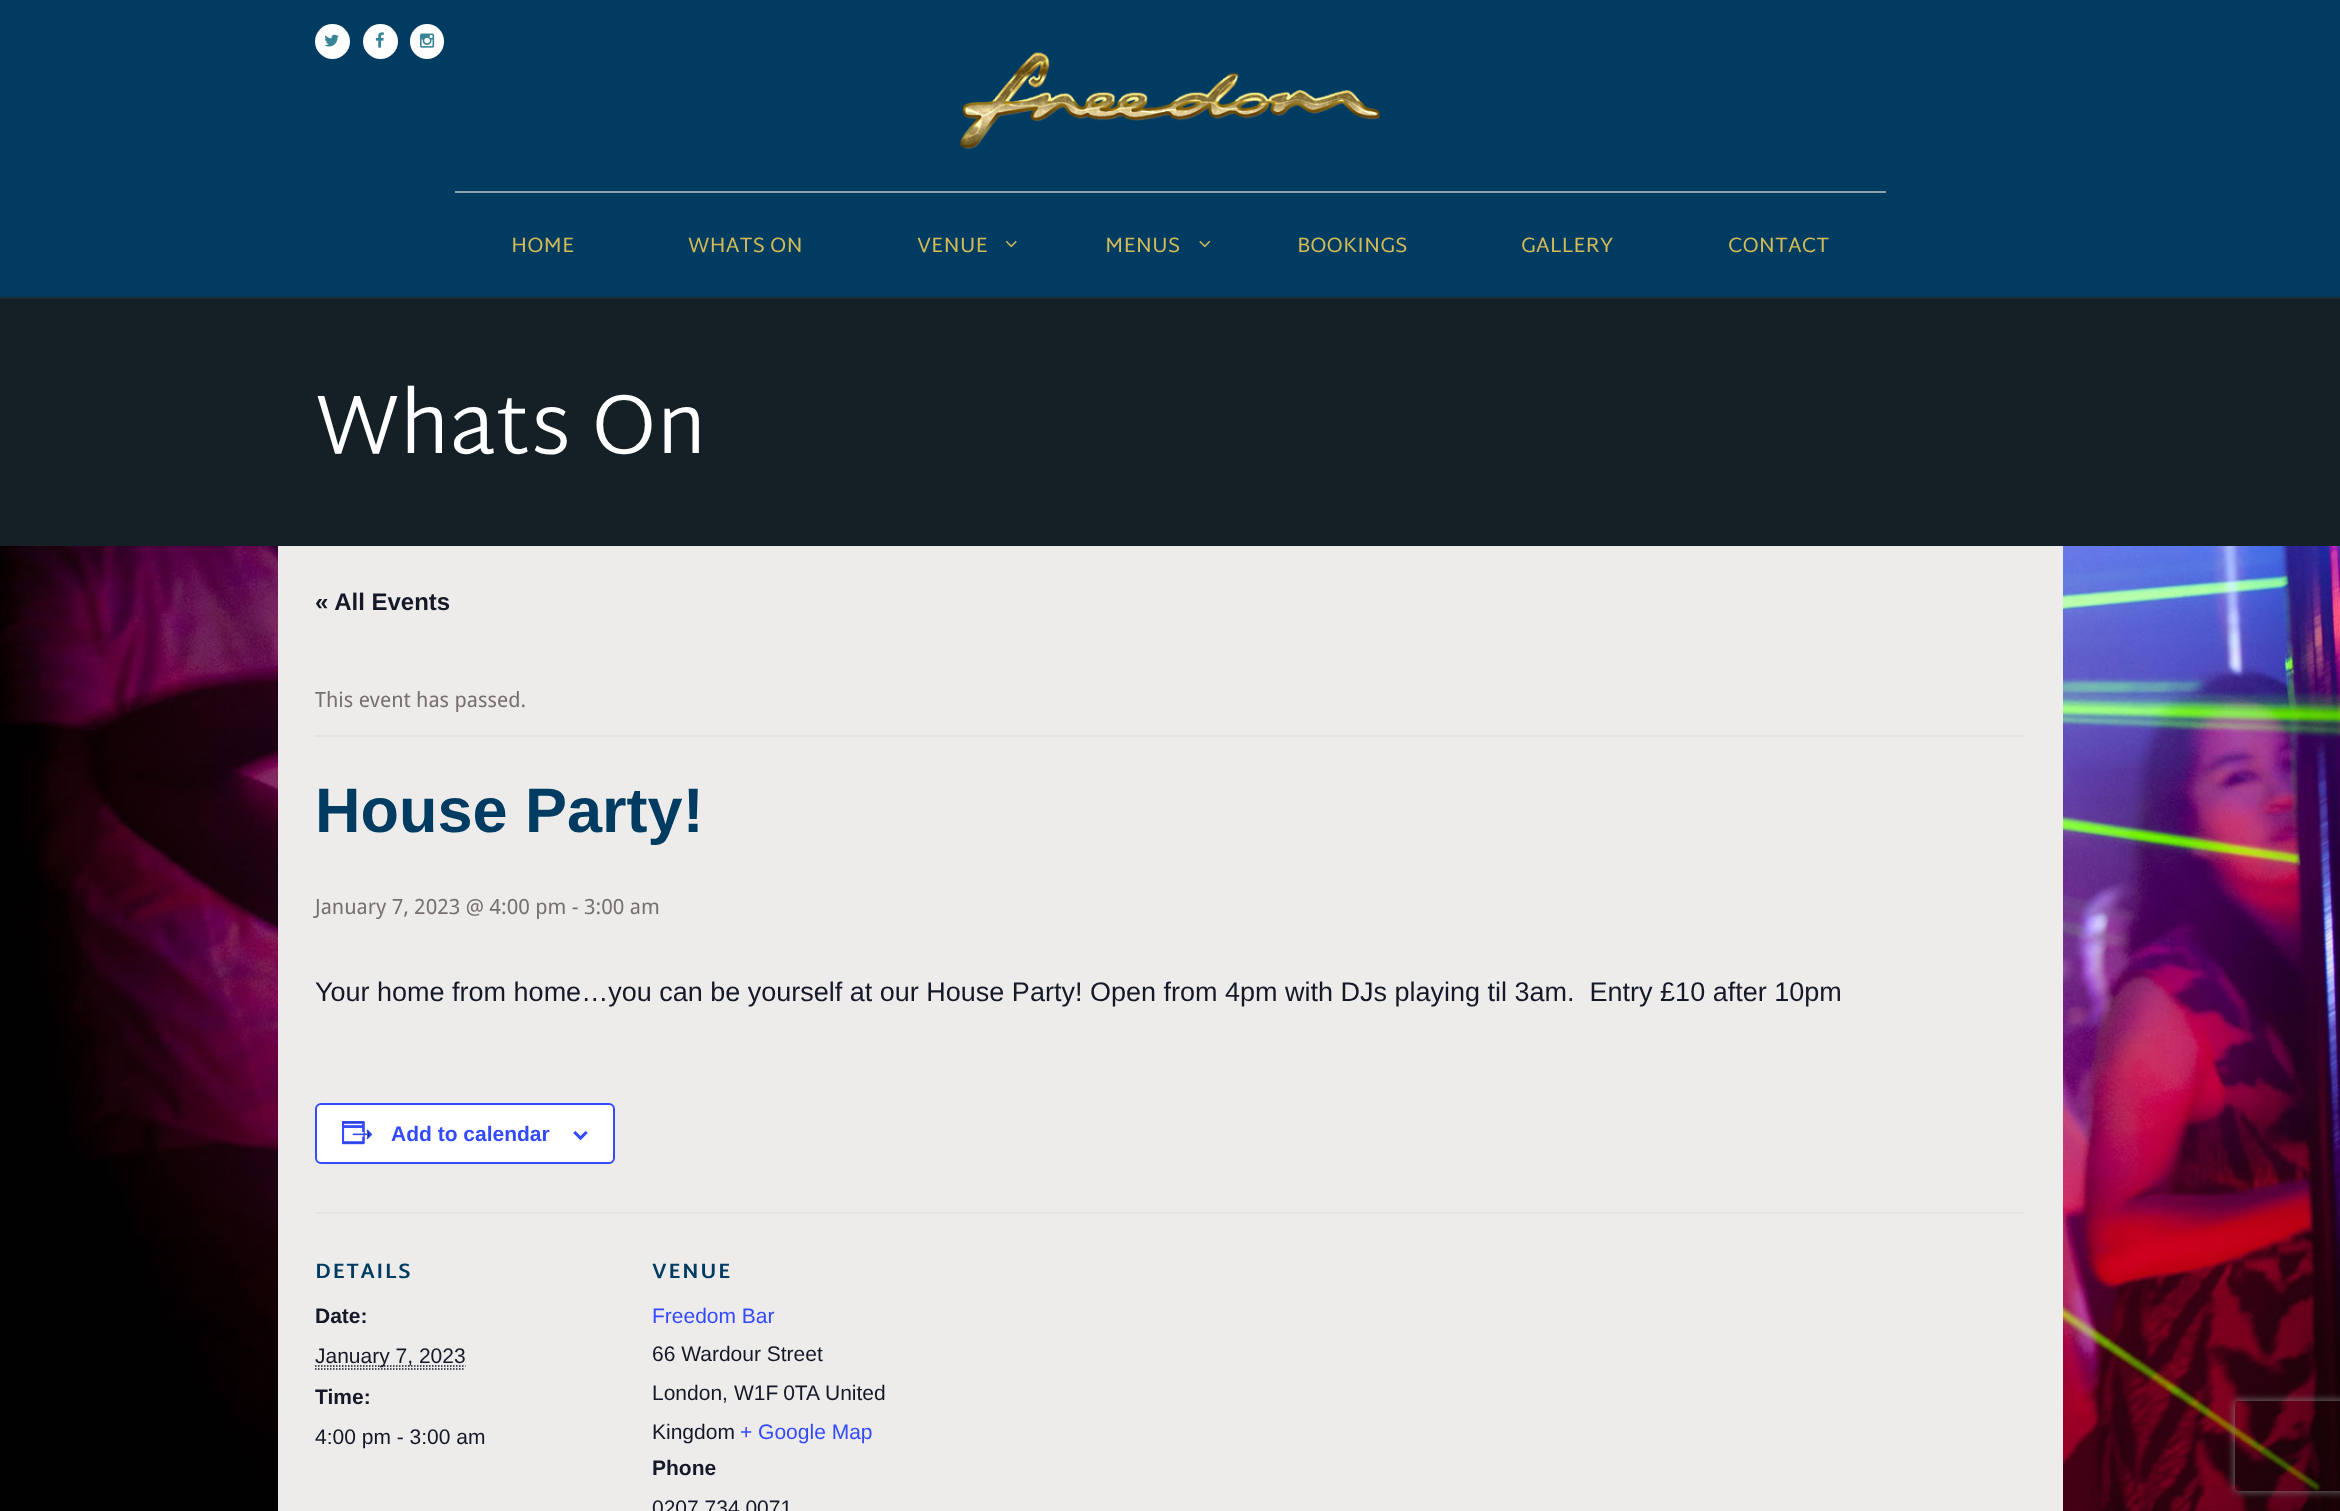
<svg xmlns="http://www.w3.org/2000/svg" width="2340" height="1511">
<defs>
<clipPath id="clip1"><path d="M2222 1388h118v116h-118zm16 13h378c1.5 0 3 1.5 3 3v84c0 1.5-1.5 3-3 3h-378c-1.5 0-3-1.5-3-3v-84c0-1.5 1.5-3 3-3z" clip-rule="evenodd"/></clipPath>
</defs>
<rect width="100%" height="100%" fill="#fff"/>
<rect width="2340" height="297" fill="#003c62"/>
<circle cx="332.5" cy="41.5" r="17.5" fill="#fff"/>
<image x="324" y="34" width="15" height="13" href="media/1.png"/>
<circle cx="380.5" cy="41.5" r="17.5" fill="#fff"/>
<image x="375" y="32" width="9" height="16" href="media/2.png"/>
<rect x="410" y="24" width="34" height="35" rx="17" fill="#fff"/>
<image x="420" y="33" width="15" height="15" href="media/3.png"/>
<image x="960" y="52" width="420" height="97" href="media/4.png"/>
<text x="511" y="252" style="font-family:Martel Sans;font-size:21px;fill:#d3bb57">HOME</text>
<rect x="455" y="191" width="1431" height="2" fill="#92a1a7"/>
<text x="688" y="252" style="font-family:Martel Sans;font-size:21px;fill:#d3bb57">WHATS ON</text>
<text x="917" y="252" style="font-family:Martel Sans;font-size:21px;fill:#d3bb57">VENUE</text>
<image x="1005" y="240" width="12" height="8" href="media/5.png"/>
<text x="1105" y="252" style="font-family:Martel Sans;font-size:21px;fill:#d3bb57">MENUS</text>
<image x="1199" y="240" width="12" height="8" href="media/6.png"/>
<text x="1297" y="252" style="font-family:Martel Sans;font-size:21px;fill:#d3bb57">BOOKINGS</text>
<text x="1521" y="252" style="font-family:Martel Sans;font-size:21px;fill:#d3bb57">GALLERY</text>
<text x="1728" y="252" style="font-family:Martel Sans;font-size:21px;fill:#d3bb57">CONTACT</text>
<rect y="299" width="2340" height="247" fill="#142025"/>
<rect y="297" width="2340" height="2" fill="#202b30"/>
<text x="315" y="453" style="font-family:Martel Sans;font-size:84px;font-weight:300;fill:#fff">Whats On</text>
<image x="0" y="546" width="2340" height="965" href="media/7.png"/>
<rect x="278" y="546" width="1785" height="965" fill="#eeecea"/>
<text x="315" y="610" style="font-family:Liberation Sans;font-size:24px;font-weight:bold;fill:#141827">« All Events</text>
<rect x="315" y="735" width="1710" height="2" fill="#e4e4e4"/>
<text x="315" y="707" style="font-family:Droid Sans;font-size:21px;fill:#777070">This event has passed.</text>
<text x="315" y="832" style="font-family:Liberation Sans;font-size:63px;font-weight:bold;fill:#003c62">House Party!</text>
<text x="315" y="914" style="font-family:Droid Sans;font-size:21px;fill:#777070">January 7, 2023 @ 4:00 pm - 3:00 am</text>
<text x="315" y="1001" style="font-family:Liberation Sans;font-size:27px;fill:#141827" xml:space="preserve">Your home from home…you can be yourself at our House Party! Open from 4pm with DJs playing til 3am.  Entry £10 after 10pm</text>
<rect x="316" y="1104" width="298" height="59" rx="5" fill="#fff" stroke="#334aff" stroke-width="2"/>
<image x="342" y="1121" width="31" height="24" href="media/8.png"/>
<text x="391" y="1141" style="font-family:Liberation Sans;font-size:21px;font-weight:bold;fill:#334aff">Add to calendar</text>
<image x="573" y="1131" width="15" height="9" href="media/9.png"/>
<rect x="315" y="1212" width="1710" height="2" fill="#e4e4e4"/>
<text x="315" y="1278" style="font-family:Martel Sans;font-size:21px;font-weight:bold;letter-spacing:1.5px;fill:#003c62">DETAILS</text>
<text x="315" y="1323" style="font-family:Liberation Sans;font-size:21px;font-weight:bold;fill:#141827">Date:</text>
<path d="M315 1366h150.5" fill="none" stroke="#141827" stroke-width="1.5" stroke-dasharray="1.5 1.5"/>
<text x="315" y="1363" style="font-family:Liberation Sans;font-size:21px;fill:#141827">January 7, 2023</text>
<path d="M315 1369h150" fill="none" stroke="#141827" stroke-width="1.5" stroke-dasharray="1.5 1.5"/>
<text x="315" y="1404" style="font-family:Liberation Sans;font-size:21px;font-weight:bold;fill:#141827">Time:</text>
<text x="315" y="1444" style="font-family:Liberation Sans;font-size:21px;fill:#141827">4:00 pm - 3:00 am</text>
<text x="652" y="1278" style="font-family:Martel Sans;font-size:21px;font-weight:bold;letter-spacing:1.5px;fill:#003c62">VENUE</text>
<text x="652" y="1323" style="font-family:Liberation Sans;font-size:21px;fill:#334aff">Freedom Bar</text>
<text x="652" y="1361" style="font-family:Liberation Sans;font-size:21px;fill:#141827">66 Wardour Street</text>
<text x="652" y="1400" style="font-family:Liberation Sans;font-size:21px;fill:#141827">London,</text>
<text x="734" y="1400" word-spacing="-1" style="font-family:Liberation Sans;font-size:21px;fill:#141827">W1F 0TA</text>
<text x="825" y="1400" style="font-family:Liberation Sans;font-size:21px;fill:#141827">United</text>
<text x="652" y="1439" style="font-family:Liberation Sans;font-size:21px;fill:#141827">Kingdom</text>
<text x="740" y="1439" style="font-family:Liberation Sans;font-size:21px;fill:#334aff">+ Google Map</text>
<text x="652" y="1475" style="font-family:Liberation Sans;font-size:21px;font-weight:bold;fill:#141827">Phone</text>
<text x="652" y="1515" style="font-family:Liberation Sans;font-size:21px;fill:#141827">0207 734 0071</text>
<g clip-path="url(#clip1)">
<rect x="2235" y="1401" width="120" height="90" rx="3" fill="#808080" filter="blur(4px)"/>
</g>
</svg>
